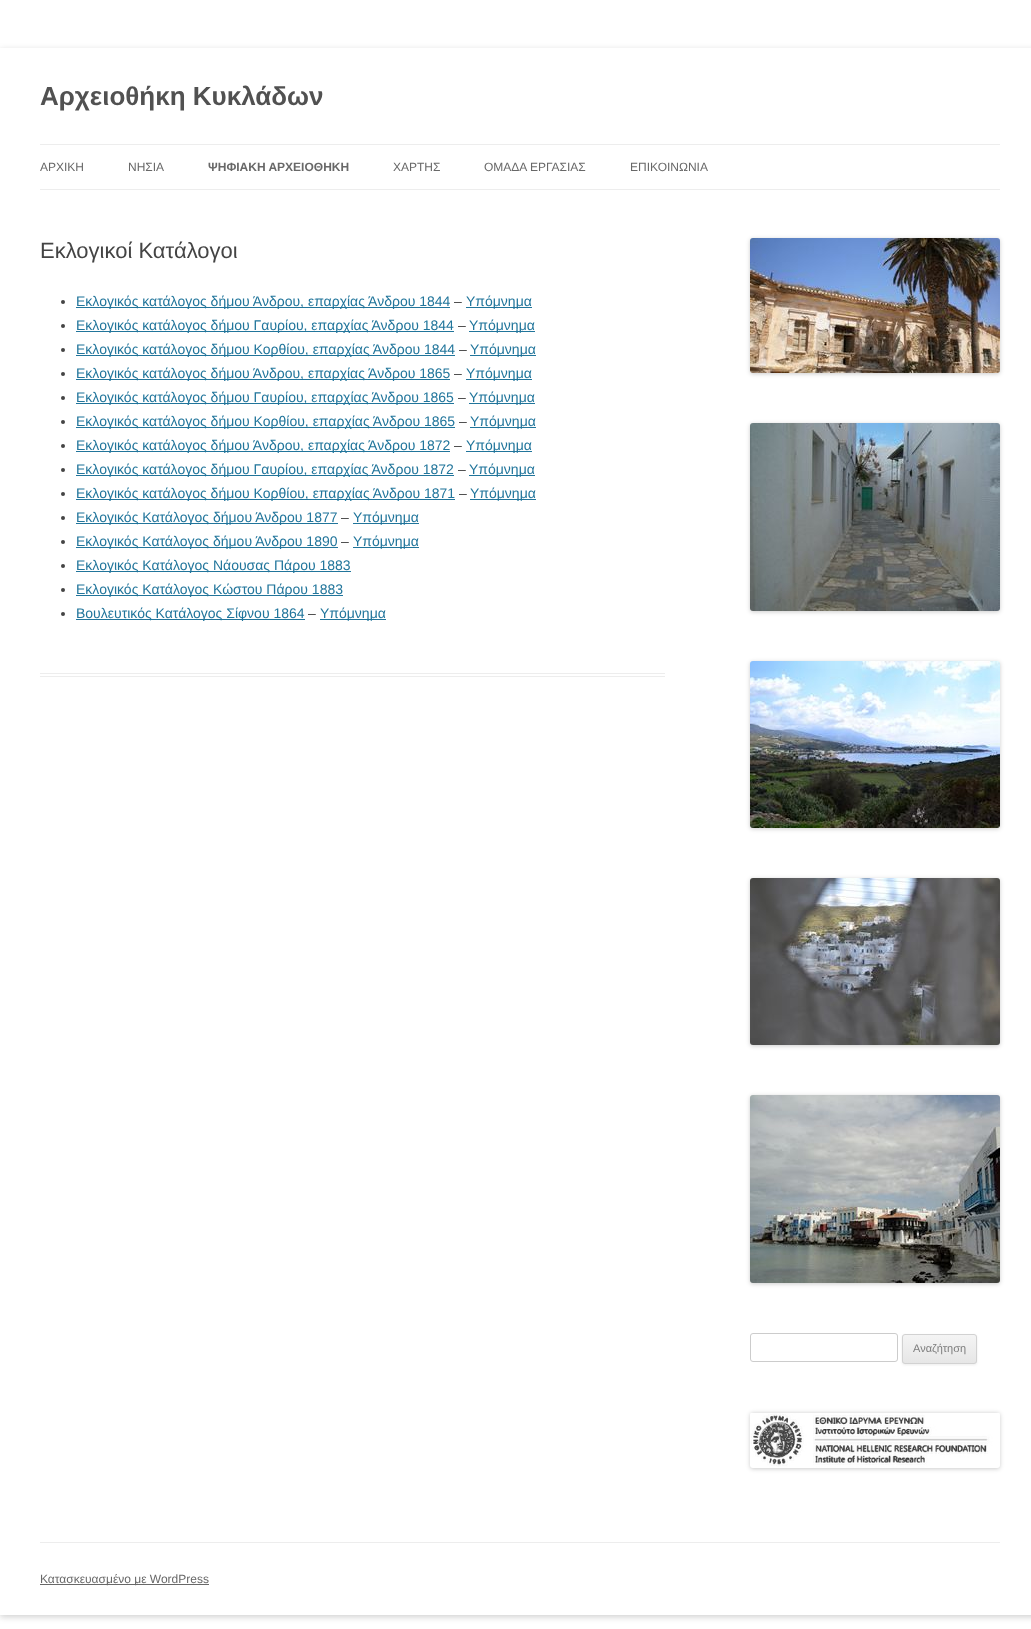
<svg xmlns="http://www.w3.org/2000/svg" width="1031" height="1629">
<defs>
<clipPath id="clip1"><path d="M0 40h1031v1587h-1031zm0 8h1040v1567h-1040z" clip-rule="evenodd"/></clipPath>
<clipPath id="clip2"><rect x="902" y="1334" width="75" height="30" rx="3"/></clipPath>
<linearGradient id="g1" gradientUnits="userSpaceOnUse" x1="940" y1="1335" x2="940" y2="1363"><stop offset="0" stop-color="#f4f4f4"/><stop offset="1" stop-color="#e6e6e6"/></linearGradient>
</defs>
<rect width="100%" height="100%" fill="#fff"/>
<g clip-path="url(#clip1)">
<rect y="50" width="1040" height="1567" fill="#6464644d" filter="blur(3px)"/>
</g>
<text x="40" y="105" style="font-family:Liberation Sans;font-size:26px;font-weight:bold;fill:#515151">Αρχειοθήκη Κυκλάδων</text>
<rect x="40" y="144" width="960" height="1" fill="#ededed"/>
<rect x="40" y="189" width="960" height="1" fill="#ededed"/>
<text x="40" y="171" style="font-family:Liberation Sans;font-size:12px;fill:#686868">ΑΡΧΙΚΗ</text>
<text x="128" y="171" style="font-family:Liberation Sans;font-size:12px;fill:#686868">ΝΗΣΙΑ</text>
<text x="208" y="171" style="font-family:Liberation Sans;font-size:12px;font-weight:bold;fill:#686868">ΨΗΦΙΑΚΗ ΑΡΧΕΙΟΘΗΚΗ</text>
<text x="393" y="171" style="font-family:Liberation Sans;font-size:12px;fill:#686868">ΧΑΡΤΗΣ</text>
<text x="484" y="171" style="font-family:Liberation Sans;font-size:12px;fill:#686868">ΟΜΑΔΑ ΕΡΓΑΣΙΑΣ</text>
<text x="630" y="171" style="font-family:Liberation Sans;font-size:12px;fill:#686868">ΕΠΙΚΟΙΝΩΝΙΑ</text>
<rect x="40" y="673" width="625" height="1" fill="#ededed"/>
<rect x="40" y="676" width="625" height="1" fill="#ededed"/>
<text x="40" y="258" style="font-family:Liberation Sans;font-size:22px;fill:#444">Εκλογικοί Κατάλογοι</text>
<circle cx="63" cy="302" r="2" fill="#444"/>
<rect x="76" y="307" width="374" height="1" fill="#21759b"/>
<text x="76" y="306" style="font-family:Liberation Sans;font-size:14px;fill:#21759b">Εκλογικός κατάλογος δήμου Άνδρου, επαρχίας Άνδρου 1844</text>
<text x="454" y="306" style="font-family:Liberation Sans;font-size:14px;fill:#444">–</text>
<rect x="466" y="307" width="66" height="1" fill="#21759b"/>
<text x="466" y="306" style="font-family:Liberation Sans;font-size:14px;fill:#21759b">Υπόμνημα</text>
<circle cx="63" cy="326" r="2" fill="#444"/>
<rect x="76" y="331" width="378" height="1" fill="#21759b"/>
<text x="76" y="330" style="font-family:Liberation Sans;font-size:14px;fill:#21759b">Εκλογικός κατάλογος δήμου Γαυρίου, επαρχίας Άνδρου 1844</text>
<text x="458" y="330" style="font-family:Liberation Sans;font-size:14px;fill:#444">–</text>
<rect x="469" y="331" width="66" height="1" fill="#21759b"/>
<text x="469" y="330" style="font-family:Liberation Sans;font-size:14px;fill:#21759b">Υπόμνημα</text>
<circle cx="63" cy="350" r="2" fill="#444"/>
<rect x="76" y="355" width="379" height="1" fill="#21759b"/>
<text x="76" y="354" style="font-family:Liberation Sans;font-size:14px;fill:#21759b">Εκλογικός κατάλογος δήμου Κορθίου, επαρχίας Άνδρου 1844</text>
<text x="459" y="354" style="font-family:Liberation Sans;font-size:14px;fill:#444">–</text>
<rect x="470" y="355" width="66" height="1" fill="#21759b"/>
<text x="470" y="354" style="font-family:Liberation Sans;font-size:14px;fill:#21759b">Υπόμνημα</text>
<circle cx="63" cy="374" r="2" fill="#444"/>
<rect x="76" y="379" width="374" height="1" fill="#21759b"/>
<text x="76" y="378" style="font-family:Liberation Sans;font-size:14px;fill:#21759b">Εκλογικός κατάλογος δήμου Άνδρου, επαρχίας Άνδρου 1865</text>
<text x="454" y="378" style="font-family:Liberation Sans;font-size:14px;fill:#444">–</text>
<rect x="466" y="379" width="66" height="1" fill="#21759b"/>
<text x="466" y="378" style="font-family:Liberation Sans;font-size:14px;fill:#21759b">Υπόμνημα</text>
<circle cx="63" cy="398" r="2" fill="#444"/>
<rect x="76" y="403" width="378" height="1" fill="#21759b"/>
<text x="76" y="402" style="font-family:Liberation Sans;font-size:14px;fill:#21759b">Εκλογικός κατάλογος δήμου Γαυρίου, επαρχίας Άνδρου 1865</text>
<text x="458" y="402" style="font-family:Liberation Sans;font-size:14px;fill:#444">–</text>
<rect x="469" y="403" width="66" height="1" fill="#21759b"/>
<text x="469" y="402" style="font-family:Liberation Sans;font-size:14px;fill:#21759b">Υπόμνημα</text>
<circle cx="63" cy="422" r="2" fill="#444"/>
<rect x="76" y="427" width="379" height="1" fill="#21759b"/>
<text x="76" y="426" style="font-family:Liberation Sans;font-size:14px;fill:#21759b">Εκλογικός κατάλογος δήμου Κορθίου, επαρχίας Άνδρου 1865</text>
<text x="459" y="426" style="font-family:Liberation Sans;font-size:14px;fill:#444">–</text>
<rect x="470" y="427" width="66" height="1" fill="#21759b"/>
<text x="470" y="426" style="font-family:Liberation Sans;font-size:14px;fill:#21759b">Υπόμνημα</text>
<circle cx="63" cy="446" r="2" fill="#444"/>
<rect x="76" y="451" width="374" height="1" fill="#21759b"/>
<text x="76" y="450" style="font-family:Liberation Sans;font-size:14px;fill:#21759b">Εκλογικός κατάλογος δήμου Άνδρου, επαρχίας Άνδρου 1872</text>
<text x="454" y="450" style="font-family:Liberation Sans;font-size:14px;fill:#444">–</text>
<rect x="466" y="451" width="66" height="1" fill="#21759b"/>
<text x="466" y="450" style="font-family:Liberation Sans;font-size:14px;fill:#21759b">Υπόμνημα</text>
<circle cx="63" cy="470" r="2" fill="#444"/>
<rect x="76" y="475" width="378" height="1" fill="#21759b"/>
<text x="76" y="474" style="font-family:Liberation Sans;font-size:14px;fill:#21759b">Εκλογικός κατάλογος δήμου Γαυρίου, επαρχίας Άνδρου 1872</text>
<text x="458" y="474" style="font-family:Liberation Sans;font-size:14px;fill:#444">–</text>
<rect x="469" y="475" width="66" height="1" fill="#21759b"/>
<text x="469" y="474" style="font-family:Liberation Sans;font-size:14px;fill:#21759b">Υπόμνημα</text>
<circle cx="63" cy="494" r="2" fill="#444"/>
<rect x="76" y="499" width="379" height="1" fill="#21759b"/>
<text x="76" y="498" style="font-family:Liberation Sans;font-size:14px;fill:#21759b">Εκλογικός κατάλογος δήμου Κορθίου, επαρχίας Άνδρου 1871</text>
<text x="459" y="498" style="font-family:Liberation Sans;font-size:14px;fill:#444">–</text>
<rect x="470" y="499" width="66" height="1" fill="#21759b"/>
<text x="470" y="498" style="font-family:Liberation Sans;font-size:14px;fill:#21759b">Υπόμνημα</text>
<circle cx="63" cy="518" r="2" fill="#444"/>
<rect x="76" y="523" width="262" height="1" fill="#21759b"/>
<text x="76" y="522" style="font-family:Liberation Sans;font-size:14px;fill:#21759b">Εκλογικός Κατάλογος δήμου Άνδρου 1877</text>
<text x="341" y="522" style="font-family:Liberation Sans;font-size:14px;fill:#444">–</text>
<rect x="353" y="523" width="66" height="1" fill="#21759b"/>
<text x="353" y="522" style="font-family:Liberation Sans;font-size:14px;fill:#21759b">Υπόμνημα</text>
<circle cx="63" cy="542" r="2" fill="#444"/>
<rect x="76" y="547" width="262" height="1" fill="#21759b"/>
<text x="76" y="546" style="font-family:Liberation Sans;font-size:14px;fill:#21759b">Εκλογικός Κατάλογος δήμου Άνδρου 1890</text>
<text x="341" y="546" style="font-family:Liberation Sans;font-size:14px;fill:#444">–</text>
<rect x="353" y="547" width="66" height="1" fill="#21759b"/>
<text x="353" y="546" style="font-family:Liberation Sans;font-size:14px;fill:#21759b">Υπόμνημα</text>
<circle cx="63" cy="566" r="2" fill="#444"/>
<rect x="76" y="571" width="275" height="1" fill="#21759b"/>
<text x="76" y="570" style="font-family:Liberation Sans;font-size:14px;fill:#21759b">Εκλογικός Κατάλογος Νάουσας Πάρου 1883</text>
<circle cx="63" cy="590" r="2" fill="#444"/>
<rect x="76" y="595" width="267" height="1" fill="#21759b"/>
<text x="76" y="594" style="font-family:Liberation Sans;font-size:14px;fill:#21759b">Εκλογικός Κατάλογος Κώστου Πάρου 1883</text>
<circle cx="63" cy="614" r="2" fill="#444"/>
<rect x="76" y="619" width="229" height="1" fill="#21759b"/>
<text x="76" y="618" style="font-family:Liberation Sans;font-size:14px;fill:#21759b">Βουλευτικός Κατάλογος Σίφνου 1864</text>
<text x="308" y="618" style="font-family:Liberation Sans;font-size:14px;fill:#444">–</text>
<rect x="320" y="619" width="66" height="1" fill="#21759b"/>
<text x="320" y="618" style="font-family:Liberation Sans;font-size:14px;fill:#21759b">Υπόμνημα</text>
<rect x="750" y="239" width="250" height="135" rx="3" fill="#00000033" filter="blur(2px)"/>
<image x="750" y="238" width="250" height="135" href="media/1.png"/>
<rect x="750" y="424" width="250" height="188" rx="3" fill="#00000033" filter="blur(2px)"/>
<image x="750" y="423" width="250" height="188" href="media/2.png"/>
<rect x="750" y="662" width="250" height="167" rx="3" fill="#00000033" filter="blur(2px)"/>
<image x="750" y="661" width="250" height="167" href="media/3.png"/>
<rect x="750" y="879" width="250" height="167" rx="3" fill="#00000033" filter="blur(2px)"/>
<image x="750" y="878" width="250" height="167" href="media/4.png"/>
<rect x="750" y="1096" width="250" height="188" rx="3" fill="#00000033" filter="blur(2px)"/>
<image x="750" y="1095" width="250" height="188" href="media/5.png"/>
<rect x="750.5" y="1333.5" width="147" height="28" rx="2.5" fill="none" stroke="#ccc"/>
<rect x="902" y="1335" width="75" height="30" rx="3" fill="#4040401a" filter="blur(1px)"/>
<g clip-path="url(#clip2)">
<rect x="902" y="1335" width="75" height="28" fill="url(#g1)"/>
</g>
<rect x="902.5" y="1334.5" width="74" height="29" rx="2.5" fill="none" stroke="#d2d2d2"/>
<text x="913" y="1352" style="font-family:Liberation Sans;font-size:11px;fill:#7c7c7c">Αναζήτηση</text>
<rect x="750" y="1413" width="250" height="56" rx="3" fill="#00000033" filter="blur(2px)"/>
<image x="750" y="1413" width="250" height="55" href="media/6.png"/>
<rect x="40" y="1542" width="960" height="1" fill="#ededed"/>
<rect x="40" y="1584" width="169" height="1" fill="#686868"/>
<text x="40" y="1583" style="font-family:Liberation Sans;font-size:12px;fill:#686868">Κατασκευασμένο με WordPress</text>
</svg>
